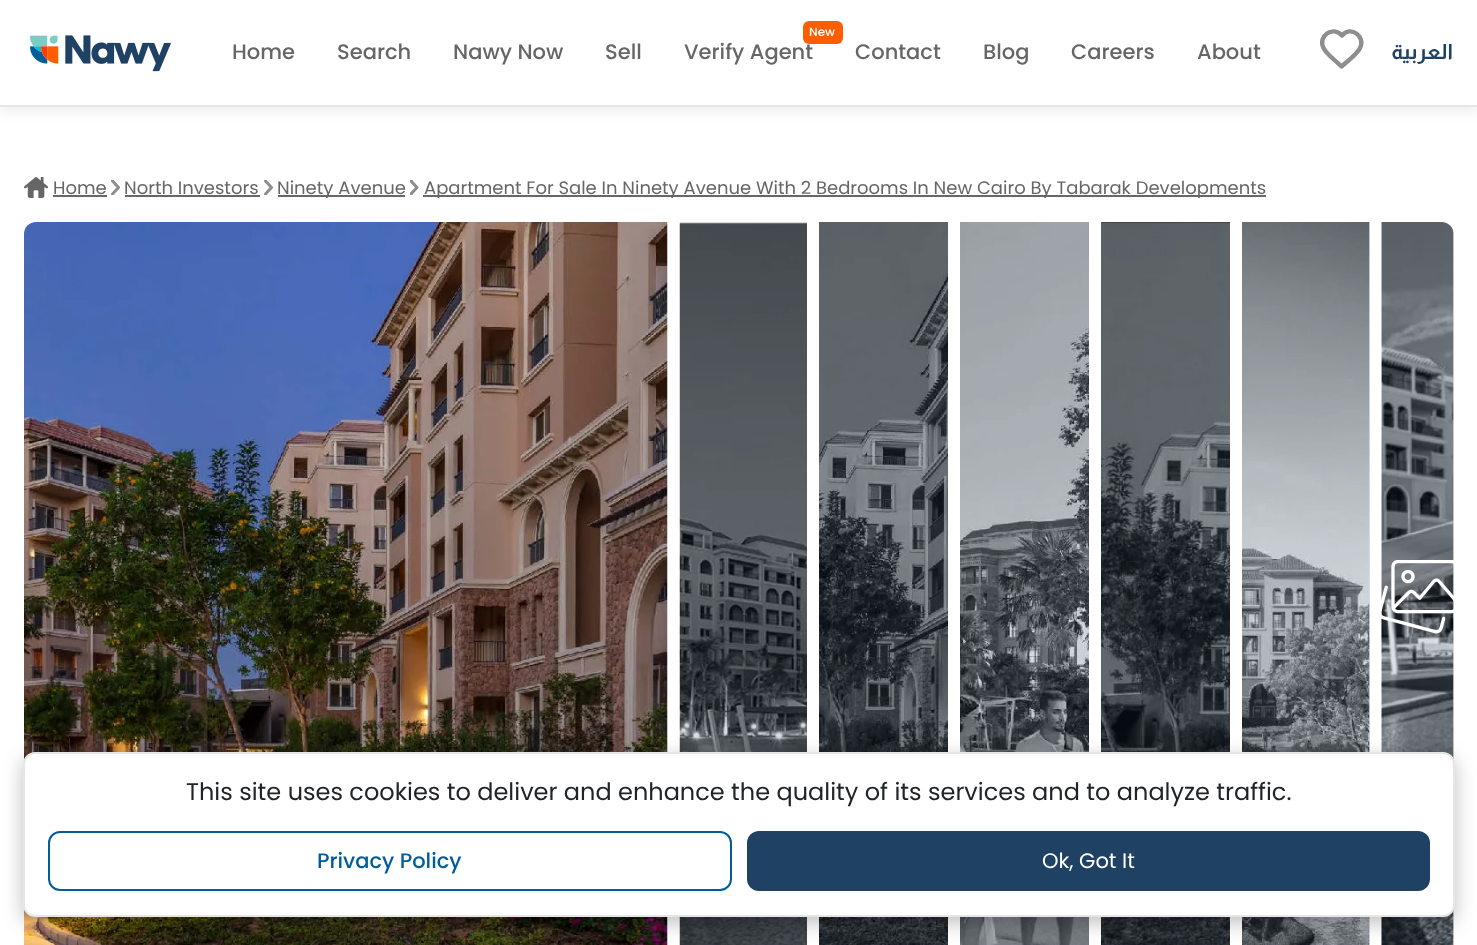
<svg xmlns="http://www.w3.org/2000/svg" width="1477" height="945">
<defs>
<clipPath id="clip1"><rect x="111" y="180" width="9" height="15"/></clipPath>
<clipPath id="clip2"><rect x="264" y="180" width="9" height="15"/></clipPath>
<clipPath id="clip3"><rect x="24" y="176" width="1430" height="22"/></clipPath>
<clipPath id="clip4"><rect x="410" y="180" width="9" height="15"/></clipPath>
</defs>
<rect width="100%" height="100%" fill="#fff"/>
<rect x="1369" y="222" width="1" height="723" fill="#dde3e8"/>
<rect y="6" width="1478" height="107" fill="#0000000f" filter="blur(6px)"/>
<rect width="1477" height="105" fill="#fff"/>
<rect y="105" width="1477" height="2" fill="#e6e6e6"/>
<image x="30" y="35" width="141" height="37" href="media/1.png"/>
<text x="232" y="59" style="font-family:Poppins;font-size:21px;font-weight:500;fill:#666">Home</text>
<text x="337" y="59" style="font-family:Poppins;font-size:21px;font-weight:500;fill:#666">Search</text>
<text x="453" y="59" style="font-family:Poppins;font-size:21px;font-weight:500;fill:#666">Nawy Now</text>
<text x="605" y="59" style="font-family:Poppins;font-size:21px;font-weight:500;fill:#666">Sell</text>
<text x="684" y="59" style="font-family:Poppins;font-size:21px;font-weight:500;fill:#666">Verify Agent</text>
<rect x="803" y="21" width="40" height="23" rx="6" fill="#ff5e00"/>
<text x="809" y="36" style="font-family:Poppins;font-size:12px;font-weight:500;fill:#fff">New</text>
<text x="855" y="59" style="font-family:Poppins;font-size:21px;font-weight:500;fill:#666">Contact</text>
<text x="983" y="59" style="font-family:Poppins;font-size:21px;font-weight:500;fill:#666">Blog</text>
<text x="1071" y="59" style="font-family:Poppins;font-size:21px;font-weight:500;fill:#666">Careers</text>
<text x="1197" y="59" style="font-family:Poppins;font-size:21px;font-weight:500;fill:#666">About</text>
<path d="M1342 35.5c-9.5-10.5-24.5 1-18.5 12.5c2.5 5 7.5 9 11.5 12.5l6.5 6l7-6c4-3.5 9-7.5 11.5-12.5c6-11.5-9.5-23-18-12.5z" fill="none" stroke="#8e8e8e" stroke-width="4.4" stroke-linecap="round" stroke-linejoin="round"/>
<text x="1453" y="59" style="font-family:Almarai;font-size:21px;font-weight:bold;direction:rtl;fill:#1e4164">العربية</text>
<image x="24" y="177" width="24" height="21" href="media/2.png"/>
<text x="53" y="194" style="font-family:Poppins;font-size:18px;fill:#666">Home</text>
<rect x="53" y="195" width="54" height="2" fill="#666"/>
<g clip-path="url(#clip1)">
<path d="M112.5 181l6 6.5l-6 6.5" fill="none" stroke="#8e8e8e" stroke-width="3" stroke-linecap="round" stroke-linejoin="round"/>
</g>
<text x="124" y="194" style="font-family:Poppins;font-size:18px;fill:#666">North Investors</text>
<rect x="125" y="195" width="135" height="2" fill="#666"/>
<g clip-path="url(#clip2)">
<path d="M265.5 181l6 6.5l-6 6.5" fill="none" stroke="#8e8e8e" stroke-width="3" stroke-linecap="round" stroke-linejoin="round"/>
</g>
<rect x="278" y="195" width="127" height="2" fill="#666"/>
<g clip-path="url(#clip3)">
<text x="277" y="194" style="font-family:Poppins;font-size:18px;fill:#666">Ninety Avenue</text>
</g>
<g clip-path="url(#clip4)">
<path d="M411 181l6 6.5l-6 6.5" fill="none" stroke="#8e8e8e" stroke-width="3" stroke-linecap="round" stroke-linejoin="round"/>
</g>
<rect x="423" y="195" width="843" height="2" fill="#666"/>
<g clip-path="url(#clip3)">
<text x="424" y="194" style="font-family:Poppins;font-size:18px;fill:#666">Apartment For Sale In Ninety Avenue With 2 Bedrooms In New Cairo By Tabarak Developments</text>
</g>
<image x="24" y="222" width="644" height="723" href="media/3.png"/>
<image x="679" y="222" width="128" height="723" href="media/4.png"/>
<image x="819" y="222" width="129" height="723" href="media/5.png"/>
<image x="960" y="222" width="129" height="723" href="media/6.png"/>
<image x="1101" y="222" width="129" height="723" href="media/7.png"/>
<image x="1242" y="222" width="128" height="723" href="media/8.png"/>
<image x="1381" y="222" width="73" height="723" href="media/9.png"/>
<path d="M1382 222h60c6.5 0 12 5.5 12 12v711c0 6.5-5.5 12-12 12h-60z" fill="#1e416426"/>
<image x="1381" y="560" width="73" height="74" href="media/10.png"/>
<rect x="23" y="758" width="1432" height="165" rx="12" fill="#00000040" filter="blur(10px)"/>
<rect x="24" y="753" width="1430" height="163" rx="11" fill="#fff" stroke="#e6e6e6" stroke-width="2"/>
<text x="186" y="800" style="font-family:Poppins;font-size:24px;fill:#212427">This site uses cookies to deliver and enhance the quality of its services and to analyze traffic.</text>
<rect x="49" y="832" width="682" height="58" rx="11" fill="none" stroke="#015c9a" stroke-width="2"/>
<text x="317" y="868" style="font-family:Poppins;font-size:21px;font-weight:500;fill:#015c9a">Privacy Policy</text>
<rect x="747" y="831" width="683" height="60" rx="12" fill="#1e4164"/>
<text x="1042" y="868" style="font-family:Poppins;font-size:21px;fill:#fff">Ok, Got It</text>
</svg>
